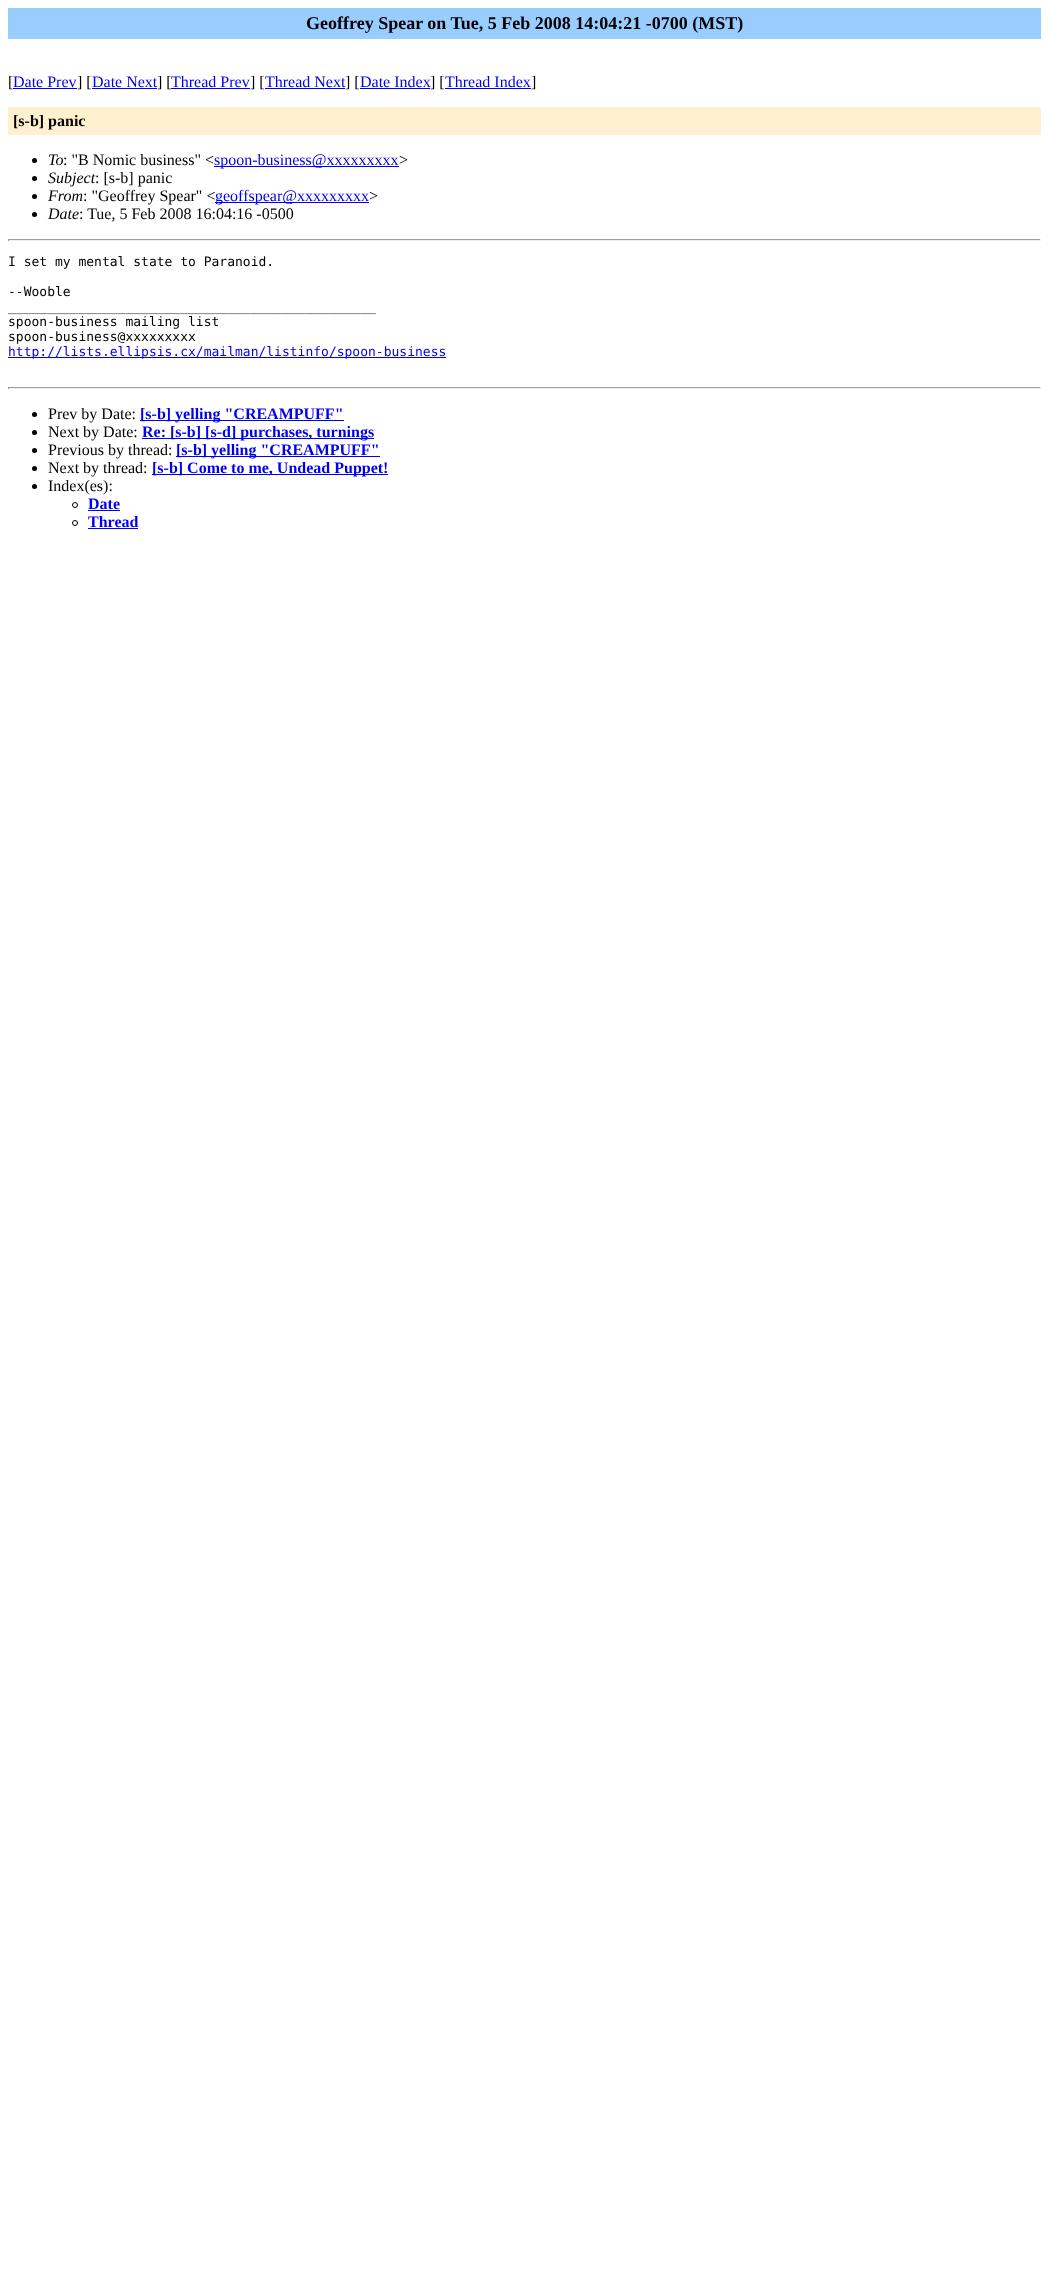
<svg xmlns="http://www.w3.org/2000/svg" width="1049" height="2272">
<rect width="100%" height="100%" fill="#fff"/>
<rect x="8" y="8" width="1033" height="31" fill="#9cf"/>
<text x="306" y="29" style="font-family:Liberation Serif;font-size:18px;font-weight:bold;fill:#000">Geoffrey Spear on Tue, 5 Feb 2008 14:04:21 -0700 (MST)</text>
<text x="8" y="87" style="font-family:Liberation Serif;font-size:16px;fill:#000">[</text>
<text x="13" y="87" style="font-family:Liberation Serif;font-size:16px;fill:#00e">Date Prev</text>
<rect x="13" y="88" width="64" height="1" fill="#00e"/>
<text x="77" y="87" style="font-family:Liberation Serif;font-size:16px;fill:#000">] [</text>
<text x="92" y="87" style="font-family:Liberation Serif;font-size:16px;fill:#00e">Date Next</text>
<rect x="92" y="88" width="65" height="1" fill="#00e"/>
<text x="157" y="87" style="font-family:Liberation Serif;font-size:16px;fill:#000">] [</text>
<text x="171" y="87" style="font-family:Liberation Serif;font-size:16px;fill:#00e">Thread Prev</text>
<rect x="171" y="88" width="79" height="1" fill="#00e"/>
<text x="250" y="87" style="font-family:Liberation Serif;font-size:16px;fill:#000">] [</text>
<text x="265" y="87" style="font-family:Liberation Serif;font-size:16px;fill:#00e">Thread Next</text>
<rect x="265" y="88" width="80" height="1" fill="#00e"/>
<text x="345" y="87" style="font-family:Liberation Serif;font-size:16px;fill:#000">] [</text>
<text x="360" y="87" style="font-family:Liberation Serif;font-size:16px;fill:#00e">Date Index</text>
<rect x="360" y="88" width="70" height="1" fill="#00e"/>
<text x="430" y="87" style="font-family:Liberation Serif;font-size:16px;fill:#000">] [</text>
<text x="445" y="87" style="font-family:Liberation Serif;font-size:16px;fill:#00e">Thread Index</text>
<rect x="445" y="88" width="86" height="1" fill="#00e"/>
<text x="531" y="87" style="font-family:Liberation Serif;font-size:16px;fill:#000">]</text>
<rect x="8" y="107" width="1033" height="28" fill="#fff0d0"/>
<text x="13" y="126" style="font-family:Liberation Serif;font-size:16px;font-weight:bold;fill:#000">[s-b] panic</text>
<circle cx="34.5" cy="160.5" r="2.5" fill="#000"/>
<text x="48" y="165" style="font-family:Liberation Serif;font-size:16px;font-style:italic;fill:#000">To</text>
<text x="63" y="165" style="font-family:Liberation Serif;font-size:16px;fill:#000">: "B Nomic business" &lt;</text>
<rect x="214" y="166" width="185" height="1" fill="#00e"/>
<text x="214" y="165" style="font-family:Liberation Serif;font-size:16px;fill:#00e">spoon-business@xxxxxxxxx</text>
<text x="399" y="165" style="font-family:Liberation Serif;font-size:16px;fill:#000">&gt;</text>
<circle cx="34.5" cy="178.5" r="2.5" fill="#000"/>
<text x="48" y="183" style="font-family:Liberation Serif;font-size:16px;font-style:italic;fill:#000">Subject</text>
<text x="95" y="183" style="font-family:Liberation Serif;font-size:16px;fill:#000">: [s-b] panic</text>
<circle cx="34.5" cy="196.5" r="2.5" fill="#000"/>
<text x="48" y="201" style="font-family:Liberation Serif;font-size:16px;font-style:italic;fill:#000">From</text>
<text x="83" y="201" style="font-family:Liberation Serif;font-size:16px;fill:#000">: "Geoffrey Spear" &lt;</text>
<rect x="215" y="202" width="154" height="1" fill="#00e"/>
<text x="215" y="201" style="font-family:Liberation Serif;font-size:16px;fill:#00e">geoffspear@xxxxxxxxx</text>
<text x="369" y="201" style="font-family:Liberation Serif;font-size:16px;fill:#000">&gt;</text>
<circle cx="34.5" cy="214.5" r="2.5" fill="#000"/>
<text x="48" y="219" style="font-family:Liberation Serif;font-size:16px;font-style:italic;fill:#000">Date</text>
<text x="79" y="219" style="font-family:Liberation Serif;font-size:16px;fill:#000">: Tue, 5 Feb 2008 16:04:16 -0500</text>
<rect x="8" y="239" width="1033" height="1" fill="#9f9f9f"/>
<rect x="1040" y="239" width="1" height="2" fill="#eee"/>
<rect x="8" y="240" width="1033" height="1" fill="#eee"/>
<rect x="8" y="239" width="1" height="2" fill="#9f9f9f"/>
<text x="8" y="266" style="font-family:DejaVu Sans Mono;font-size:13px;fill:#000">I set my mental state to Paranoid.</text>
<text x="8" y="296" style="font-family:DejaVu Sans Mono;font-size:13px;fill:#000">--Wooble</text>
<text x="8" y="311" style="font-family:DejaVu Sans Mono;font-size:13px;fill:#000">_______________________________________________</text>
<text x="8" y="326" style="font-family:DejaVu Sans Mono;font-size:13px;fill:#000">spoon-business mailing list</text>
<text x="8" y="341" style="font-family:DejaVu Sans Mono;font-size:13px;fill:#000">spoon-business@xxxxxxxxx</text>
<rect x="8" y="357" width="438" height="1" fill="#00e"/>
<text x="8" y="356" style="font-family:DejaVu Sans Mono;font-size:13px;fill:#00e">http://lists.ellipsis.cx/mailman/listinfo/spoon-business</text>
<rect x="8" y="387" width="1033" height="1" fill="#9f9f9f"/>
<rect x="1040" y="387" width="1" height="2" fill="#eee"/>
<rect x="8" y="388" width="1033" height="1" fill="#eee"/>
<rect x="8" y="387" width="1" height="2" fill="#9f9f9f"/>
<circle cx="34.5" cy="414.5" r="2.5" fill="#000"/>
<text x="48" y="419" style="font-family:Liberation Serif;font-size:16px;fill:#000">Prev by Date:</text>
<rect x="140" y="420" width="204" height="1" fill="#00e"/>
<text x="140" y="419" style="font-family:Liberation Serif;font-size:16px;font-weight:bold;fill:#00e">[s-b] yelling "CREAMPUFF"</text>
<circle cx="34.5" cy="432.5" r="2.5" fill="#000"/>
<text x="48" y="437" style="font-family:Liberation Serif;font-size:16px;fill:#000">Next by Date:</text>
<rect x="142" y="438" width="232" height="1" fill="#00e"/>
<text x="142" y="437" style="font-family:Liberation Serif;font-size:16px;font-weight:bold;fill:#00e">Re: [s-b] [s-d] purchases, turnings</text>
<circle cx="34.5" cy="450.5" r="2.5" fill="#000"/>
<text x="48" y="455" style="font-family:Liberation Serif;font-size:16px;fill:#000">Previous by thread:</text>
<rect x="176" y="456" width="204" height="1" fill="#00e"/>
<text x="176" y="455" style="font-family:Liberation Serif;font-size:16px;font-weight:bold;fill:#00e">[s-b] yelling "CREAMPUFF"</text>
<circle cx="34.5" cy="468.5" r="2.5" fill="#000"/>
<text x="48" y="473" style="font-family:Liberation Serif;font-size:16px;fill:#000">Next by thread:</text>
<rect x="152" y="474" width="236" height="1" fill="#00e"/>
<text x="152" y="473" style="font-family:Liberation Serif;font-size:16px;font-weight:bold;fill:#00e">[s-b] Come to me, Undead Puppet!</text>
<circle cx="34.5" cy="486.5" r="2.5" fill="#000"/>
<text x="48" y="491" style="font-family:Liberation Serif;font-size:16px;fill:#000">Index(es):</text>
<circle cx="75" cy="505" r="2.5" fill="none" stroke="#000"/>
<text x="88" y="509" style="font-family:Liberation Serif;font-size:16px;font-weight:bold;fill:#00e">Date</text>
<rect x="88" y="510" width="32" height="1" fill="#00e"/>
<circle cx="75" cy="523" r="2.5" fill="none" stroke="#000"/>
<text x="88" y="527" style="font-family:Liberation Serif;font-size:16px;font-weight:bold;fill:#00e">Thread</text>
<rect x="88" y="528" width="50" height="1" fill="#00e"/>
</svg>
